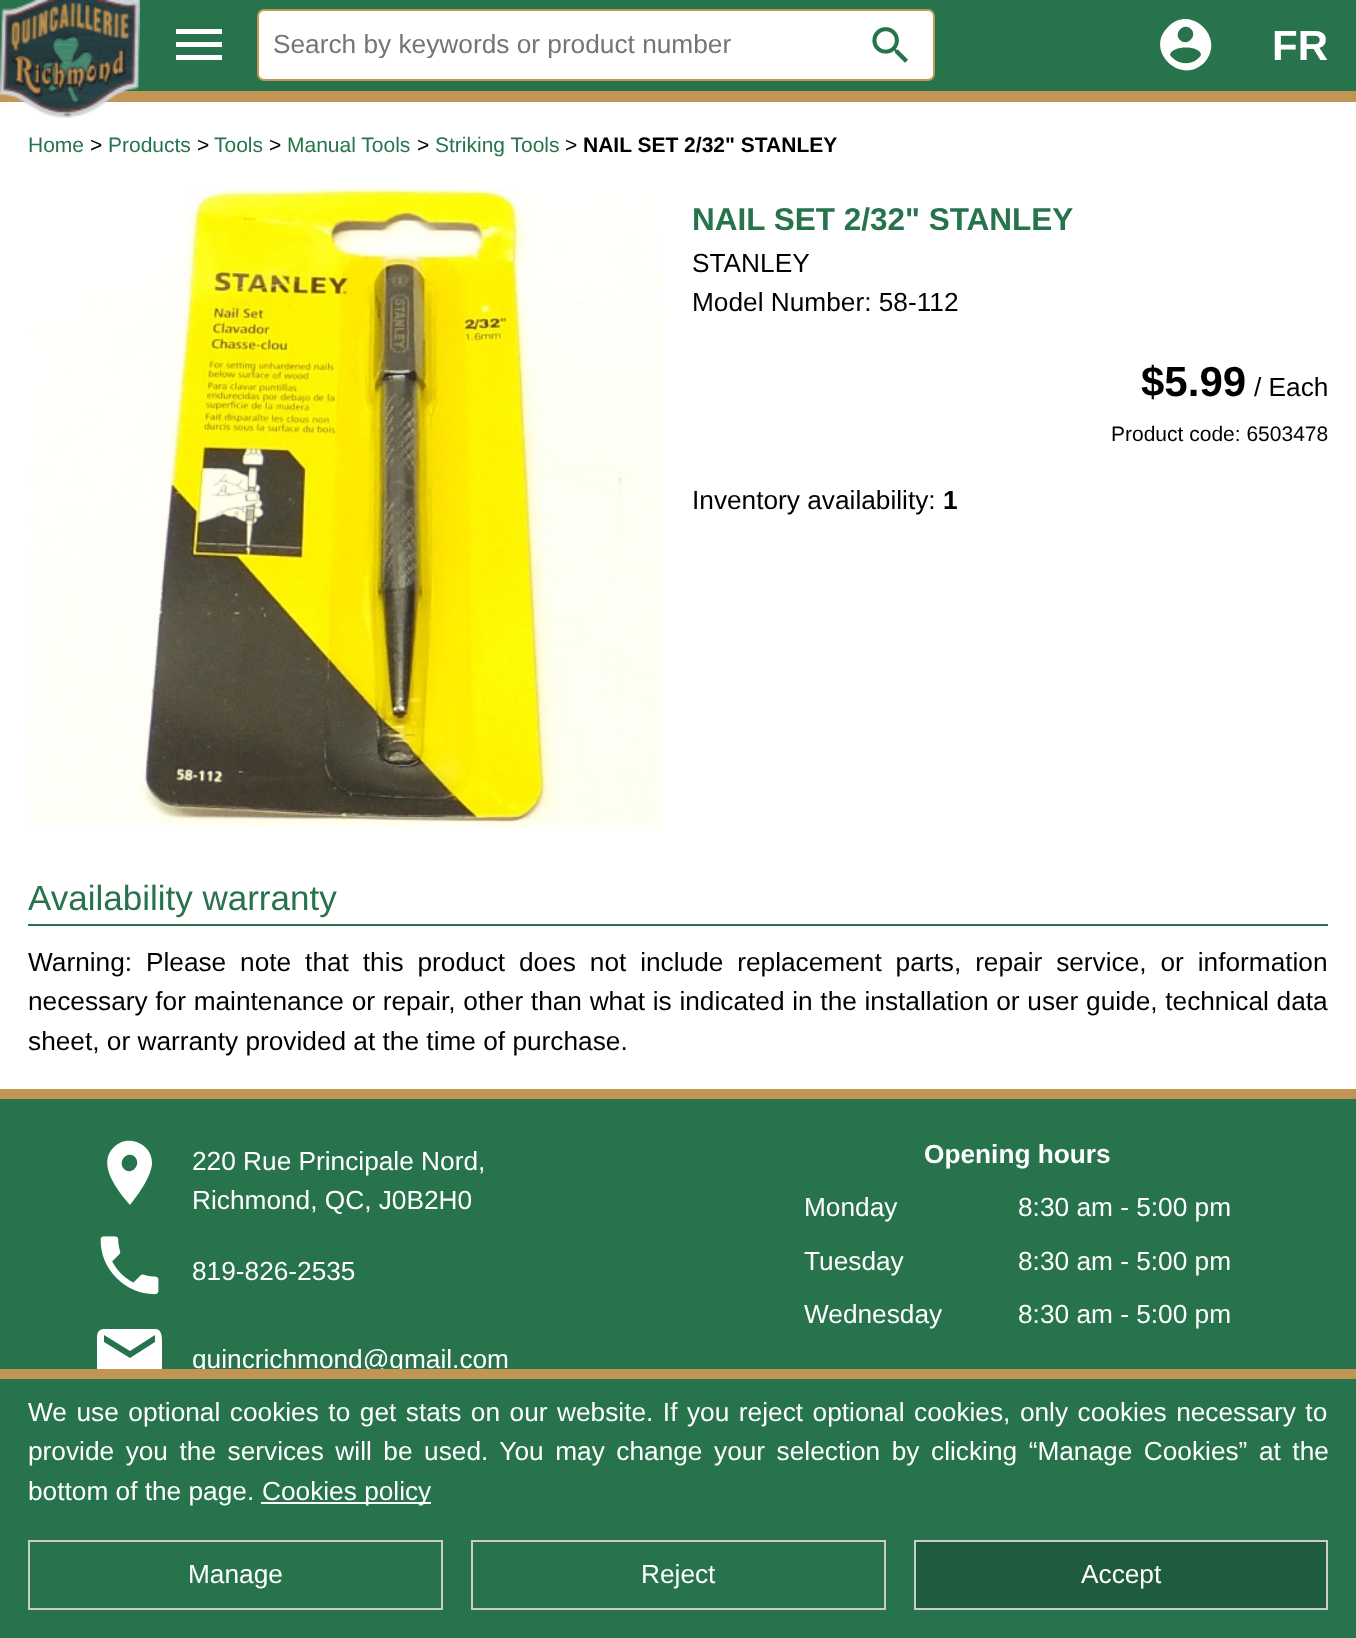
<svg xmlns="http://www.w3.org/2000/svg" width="1356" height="1638">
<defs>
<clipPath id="clip1"><rect x="273" y="28" width="646" height="30"/></clipPath>
</defs>
<rect width="100%" height="100%" fill="#fff"/>
<rect width="1356" height="91" fill="#26734c"/>
<rect y="91" width="1356" height="11" fill="#c29554"/>
<image x="0" y="0" width="140" height="118" href="media/1.png"/>
<path d="M176 29h46v5h-46zm0 18v-5h46v5zm0 13v-5h46v5z" fill="#fff"/>
<rect x="258" y="10" width="676" height="70" rx="6" fill="#fff" stroke="#c29554" stroke-width="2"/>
<g clip-path="url(#clip1)">
<text x="273" y="53" style="font-family:Liberation Sans;font-size:26.25px;fill:#757575">Search by keywords or product number</text>
</g>
<image x="872" y="27" width="36" height="36" href="media/2.png"/>
<path d="M1170 55c8 11 24 11 31 0c0-10-30-10-31 0zm21-26c-7-7-18 4-11 11c7 7 18-4 11-11zm-23-2c23-24 59 12 36 36c-24 23-60-13-36-36z" fill="#fff"/>
<text x="1272" y="60" style="font-family:Liberation Sans;font-size:42px;font-weight:bold;fill:#fff">FR</text>
<text x="28" y="152" style="font-family:Liberation Sans;font-size:21px;fill:#26734c">Home</text>
<text x="90" y="152" style="font-family:Liberation Sans;font-size:21px;fill:#000">&gt;</text>
<text x="108" y="152" style="font-family:Liberation Sans;font-size:21px;fill:#26734c">Products</text>
<text x="197" y="152" style="font-family:Liberation Sans;font-size:21px;fill:#000">&gt;</text>
<text x="214" y="152" style="font-family:Liberation Sans;font-size:21px;fill:#26734c">Tools</text>
<text x="269" y="152" style="font-family:Liberation Sans;font-size:21px;fill:#000">&gt;</text>
<text x="287" y="152" style="font-family:Liberation Sans;font-size:21px;fill:#26734c">Manual Tools</text>
<text x="417" y="152" style="font-family:Liberation Sans;font-size:21px;fill:#000">&gt;</text>
<text x="435" y="152" style="font-family:Liberation Sans;font-size:21px;fill:#26734c">Striking Tools</text>
<text x="565" y="152" style="font-family:Liberation Sans;font-size:21px;fill:#000">&gt;</text>
<text x="583" y="152" style="font-family:Liberation Sans;font-size:21px;font-weight:bold;fill:#000">NAIL SET 2/32" STANLEY</text>
<image x="28" y="189" width="635" height="637" href="media/3.png"/>
<text x="692" y="230" style="font-family:Liberation Sans;font-size:31.5px;font-weight:bold;fill:#26734c">NAIL SET 2/32" STANLEY</text>
<text x="692" y="272" style="font-family:Liberation Sans;font-size:26.25px;fill:#000">STANLEY</text>
<text x="692" y="311" style="font-family:Liberation Sans;font-size:26.25px;fill:#000">Model Number: 58-112</text>
<text x="1141" y="396" style="font-family:Liberation Sans;font-size:42px;font-weight:bold;fill:#000">$5.99</text>
<text x="1254" y="396" style="font-family:Liberation Sans;font-size:26.25px;fill:#000">/ Each</text>
<text x="1111" y="441" style="font-family:Liberation Sans;font-size:21px;fill:#000">Product code: 6503478</text>
<text x="692" y="509" style="font-family:Liberation Sans;font-size:26.25px;fill:#000">Inventory availability:</text>
<text x="943" y="509" style="font-family:Liberation Sans;font-size:26.25px;font-weight:bold;fill:#000">1</text>
<rect x="28" y="924" width="1300" height="2" fill="#26734c"/>
<text x="28" y="910" style="font-family:Liberation Sans;font-size:35px;fill:#26734c">Availability warranty</text>
<text x="28" y="971" word-spacing="6.6" style="font-family:Liberation Sans;font-size:26.25px;fill:#000">Warning: Please note that this product does not include replacement parts, repair service, or information</text>
<text x="28" y="1010" word-spacing="0.4" style="font-family:Liberation Sans;font-size:26.25px;fill:#000">necessary for maintenance or repair, other than what is indicated in the installation or user guide, technical data</text>
<text x="28" y="1050" style="font-family:Liberation Sans;font-size:26.25px;fill:#000">sheet, or warranty provided at the time of purchase.</text>
<rect y="1099" width="1356" height="270" fill="#26734c"/>
<rect y="1089" width="1356" height="10" fill="#c29554"/>
<path d="M124 1169c7 7 18-4 11-12c-7-7-18 4-11 12zm-10-22c14-14 39-3 38 17c-1 13-14 31-22 41c-12-14-34-41-16-58z" fill="#fff"/>
<text x="192" y="1170" style="font-family:Liberation Sans;font-size:26.25px;fill:#fff">220 Rue Principale Nord,</text>
<text x="192" y="1209" style="font-family:Liberation Sans;font-size:26.25px;fill:#fff">Richmond, QC, J0B2H0</text>
<image x="100" y="1236" width="59" height="59" href="media/4.png"/>
<text x="192" y="1280" style="font-family:Liberation Sans;font-size:26.25px;fill:#fff">819-826-2535</text>
<path d="M155 1342v-7l-25 16l-26-16v7l26 16zm0-13c7 0 7 8 7 13v25c0 5 1 12-6 13h-53c-6 0-6-8-6-13v-25c0-5-1-12 6-13z" fill="#fff"/>
<text x="192" y="1368" style="font-family:Liberation Sans;font-size:26.25px;fill:#fff">quincrichmond@gmail.com</text>
<text x="924" y="1163" style="font-family:Liberation Sans;font-size:26.25px;font-weight:bold;fill:#fff">Opening hours</text>
<text x="804" y="1216" style="font-family:Liberation Sans;font-size:26.25px;fill:#fff">Monday</text>
<text x="1018" y="1216" style="font-family:Liberation Sans;font-size:26.25px;fill:#fff">8:30 am - 5:00 pm</text>
<text x="804" y="1270" style="font-family:Liberation Sans;font-size:26.25px;fill:#fff">Tuesday</text>
<text x="1018" y="1270" style="font-family:Liberation Sans;font-size:26.25px;fill:#fff">8:30 am - 5:00 pm</text>
<text x="804" y="1323" style="font-family:Liberation Sans;font-size:26.25px;fill:#fff">Wednesday</text>
<text x="1018" y="1323" style="font-family:Liberation Sans;font-size:26.25px;fill:#fff">8:30 am - 5:00 pm</text>
<rect y="1379" width="1356" height="259" fill="#26734c"/>
<rect y="1369" width="1356" height="10" fill="#c29554"/>
<text x="28" y="1421" word-spacing="2.25" style="font-family:Liberation Sans;font-size:26.25px;fill:#fff">We use optional cookies to get stats on our website. If you reject optional cookies, only cookies necessary to</text>
<text x="28" y="1460" word-spacing="4.25" style="font-family:Liberation Sans;font-size:26.25px;fill:#fff">provide you the services will be used. You may change your selection by clicking “Manage Cookies” at the</text>
<text x="28" y="1500" style="font-family:Liberation Sans;font-size:26.25px;fill:#fff">bottom of the page.</text>
<rect x="261" y="1502" width="170" height="2" fill="#fff"/>
<text x="262" y="1500" style="font-family:Liberation Sans;font-size:26.25px;fill:#fff">Cookies policy</text>
<rect x="29" y="1541" width="413" height="68" fill="none" stroke="#ccc" stroke-width="2"/>
<text x="188" y="1583" style="font-family:Liberation Sans;font-size:26.25px;fill:#fff">Manage</text>
<rect x="472" y="1541" width="413" height="68" fill="none" stroke="#ccc" stroke-width="2"/>
<text x="641" y="1583" style="font-family:Liberation Sans;font-size:26.25px;fill:#fff">Reject</text>
<rect x="915" y="1541" width="412" height="68" fill="#1f5c3d" stroke="#ccc" stroke-width="2"/>
<text x="1081" y="1583" style="font-family:Liberation Sans;font-size:26.25px;fill:#fff">Accept</text>
</svg>
